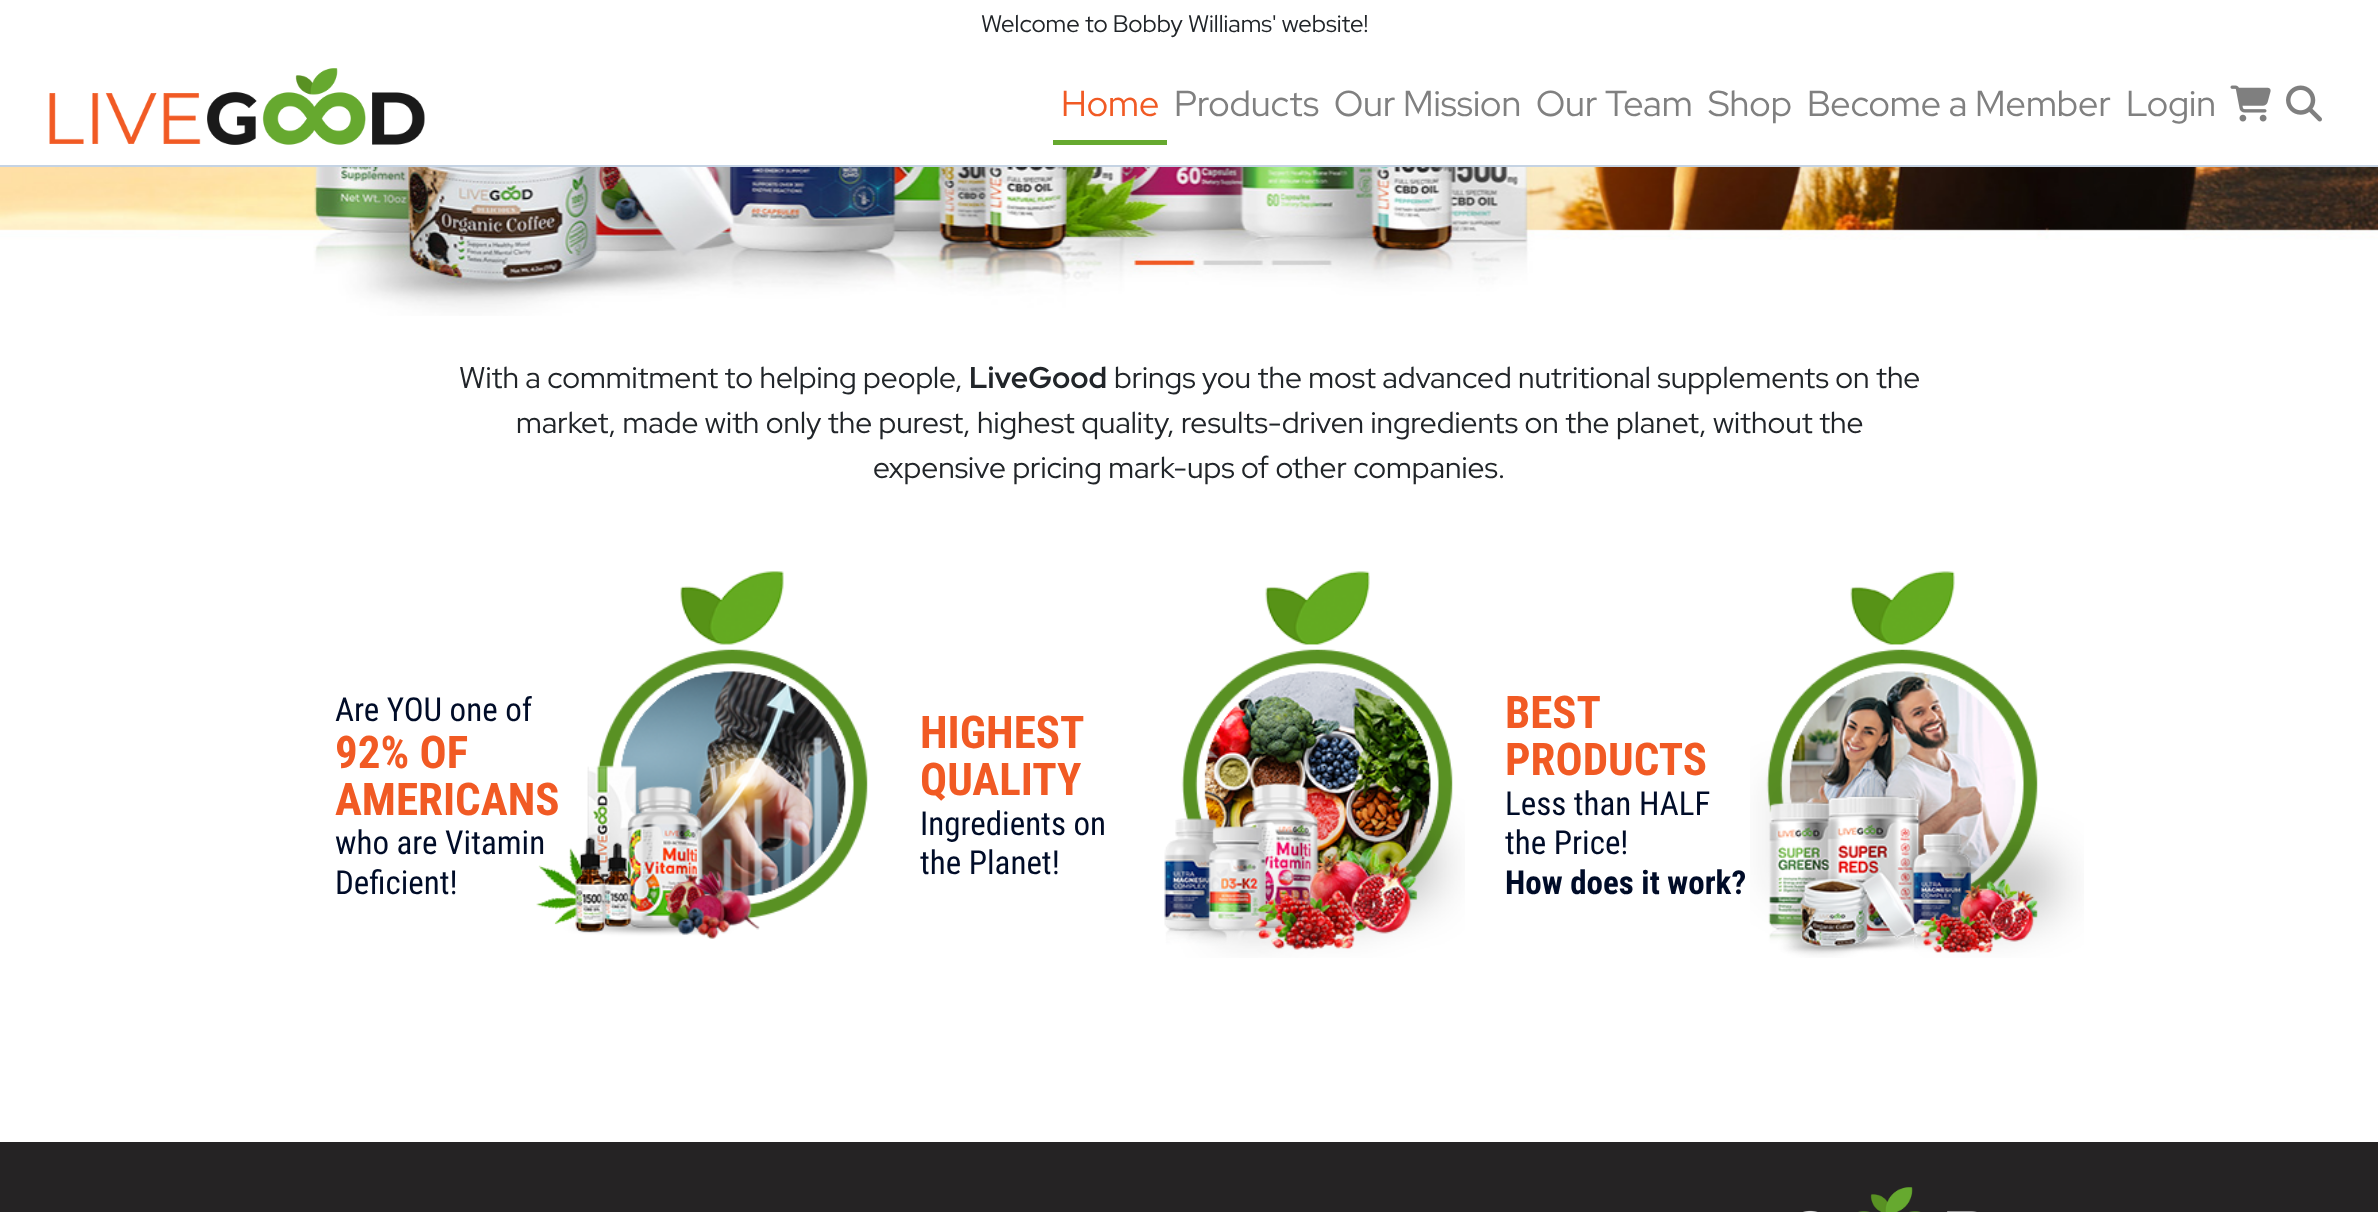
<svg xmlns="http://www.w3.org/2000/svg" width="2378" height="1212">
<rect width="100%" height="100%" fill="#fff"/>
<rect y="165" width="2378" height="2" fill="#c5d3e3"/>
<text x="981" y="32" style="font-family:Red Hat Display;font-size:24px;fill:#212529">Welcome to Bobby Williams' website!</text>
<image x="49" y="68" width="376" height="77" href="media/1.png"/>
<rect x="1053" y="140" width="114" height="5" fill="#66a92f"/>
<text x="1061" y="116" style="font-family:Red Hat Display;font-size:36px;fill:#f15a24">Home</text>
<text x="1174" y="116" style="font-family:Red Hat Display;font-size:36px;fill:#808080">Products</text>
<text x="1334" y="116" style="font-family:Red Hat Display;font-size:36px;fill:#808080">Our Mission</text>
<text x="1536" y="116" style="font-family:Red Hat Display;font-size:36px;fill:#808080">Our Team</text>
<text x="1708" y="116" style="font-family:Red Hat Display;font-size:36px;fill:#808080">Shop</text>
<text x="1807" y="116" style="font-family:Red Hat Display;font-size:36px;fill:#808080">Become a Member</text>
<text x="2126" y="116" style="font-family:Red Hat Display;font-size:36px;fill:#808080">Login</text>
<image x="2230" y="85" width="41" height="37" href="media/2.png"/>
<image x="2286" y="85" width="36" height="37" href="media/3.png"/>
<image x="0" y="167" width="2378" height="149" href="media/4.png"/>
<text x="459" y="388" style="font-family:Red Hat Display;font-size:30px;fill:#212529">With a commitment to helping people,</text>
<text x="969" y="388" style="font-family:Red Hat Display;font-size:30px;font-weight:bold;fill:#212529">LiveGood</text>
<text x="1114" y="388" style="font-family:Red Hat Display;font-size:30px;fill:#212529">brings you the most advanced nutritional supplements on the</text>
<text x="516" y="433" style="font-family:Red Hat Display;font-size:30px;fill:#212529">market, made with only the purest, highest quality, results-driven ingredients on the planet, without the</text>
<text x="873" y="478" style="font-family:Red Hat Display;font-size:30px;fill:#212529">expensive pricing mark-ups of other companies.</text>
<text x="335" y="721" style="font-family:Roboto Condensed;font-size:33px;fill:#000c28">Are YOU one of</text>
<text x="335" y="768" style="font-family:Roboto Condensed;font-size:45px;font-weight:bold;fill:#f15a24">92% OF</text>
<text x="335" y="815" style="font-family:Roboto Condensed;font-size:45px;font-weight:bold;fill:#f15a24">AMERICANS</text>
<text x="335" y="854" style="font-family:Roboto Condensed;font-size:33px;fill:#000c28">who are Vitamin</text>
<text x="335" y="894" style="font-family:Roboto Condensed;font-size:33px;fill:#000c28">Deficient!</text>
<image x="536" y="571" width="332" height="368" href="media/5.png"/>
<text x="920" y="748" style="font-family:Roboto Condensed;font-size:45px;font-weight:bold;fill:#f15a24">HIGHEST</text>
<text x="920" y="795" style="font-family:Roboto Condensed;font-size:45px;font-weight:bold;fill:#f15a24">QUALITY</text>
<text x="920" y="835" style="font-family:Roboto Condensed;font-size:33px;fill:#000c28">Ingredients on</text>
<text x="920" y="874" style="font-family:Roboto Condensed;font-size:33px;fill:#000c28">the Planet!</text>
<image x="1164" y="571" width="301" height="387" href="media/6.png"/>
<text x="1505" y="728" style="font-family:Roboto Condensed;font-size:45px;font-weight:bold;fill:#f15a24">BEST</text>
<text x="1505" y="775" style="font-family:Roboto Condensed;font-size:45px;font-weight:bold;fill:#f15a24">PRODUCTS</text>
<text x="1505" y="815" style="font-family:Roboto Condensed;font-size:33px;fill:#000c28">Less than HALF</text>
<text x="1505" y="854" style="font-family:Roboto Condensed;font-size:33px;fill:#000c28">the Price!</text>
<text x="1505" y="894" style="font-family:Roboto Condensed;font-size:33px;font-weight:bold;fill:#000c28">How does it work?</text>
<image x="1750" y="571" width="334" height="387" href="media/7.png"/>
<rect y="1142" width="2378" height="70" fill="#252324"/>
<image x="1731" y="1187" width="246" height="25" href="media/8.png"/>
</svg>
